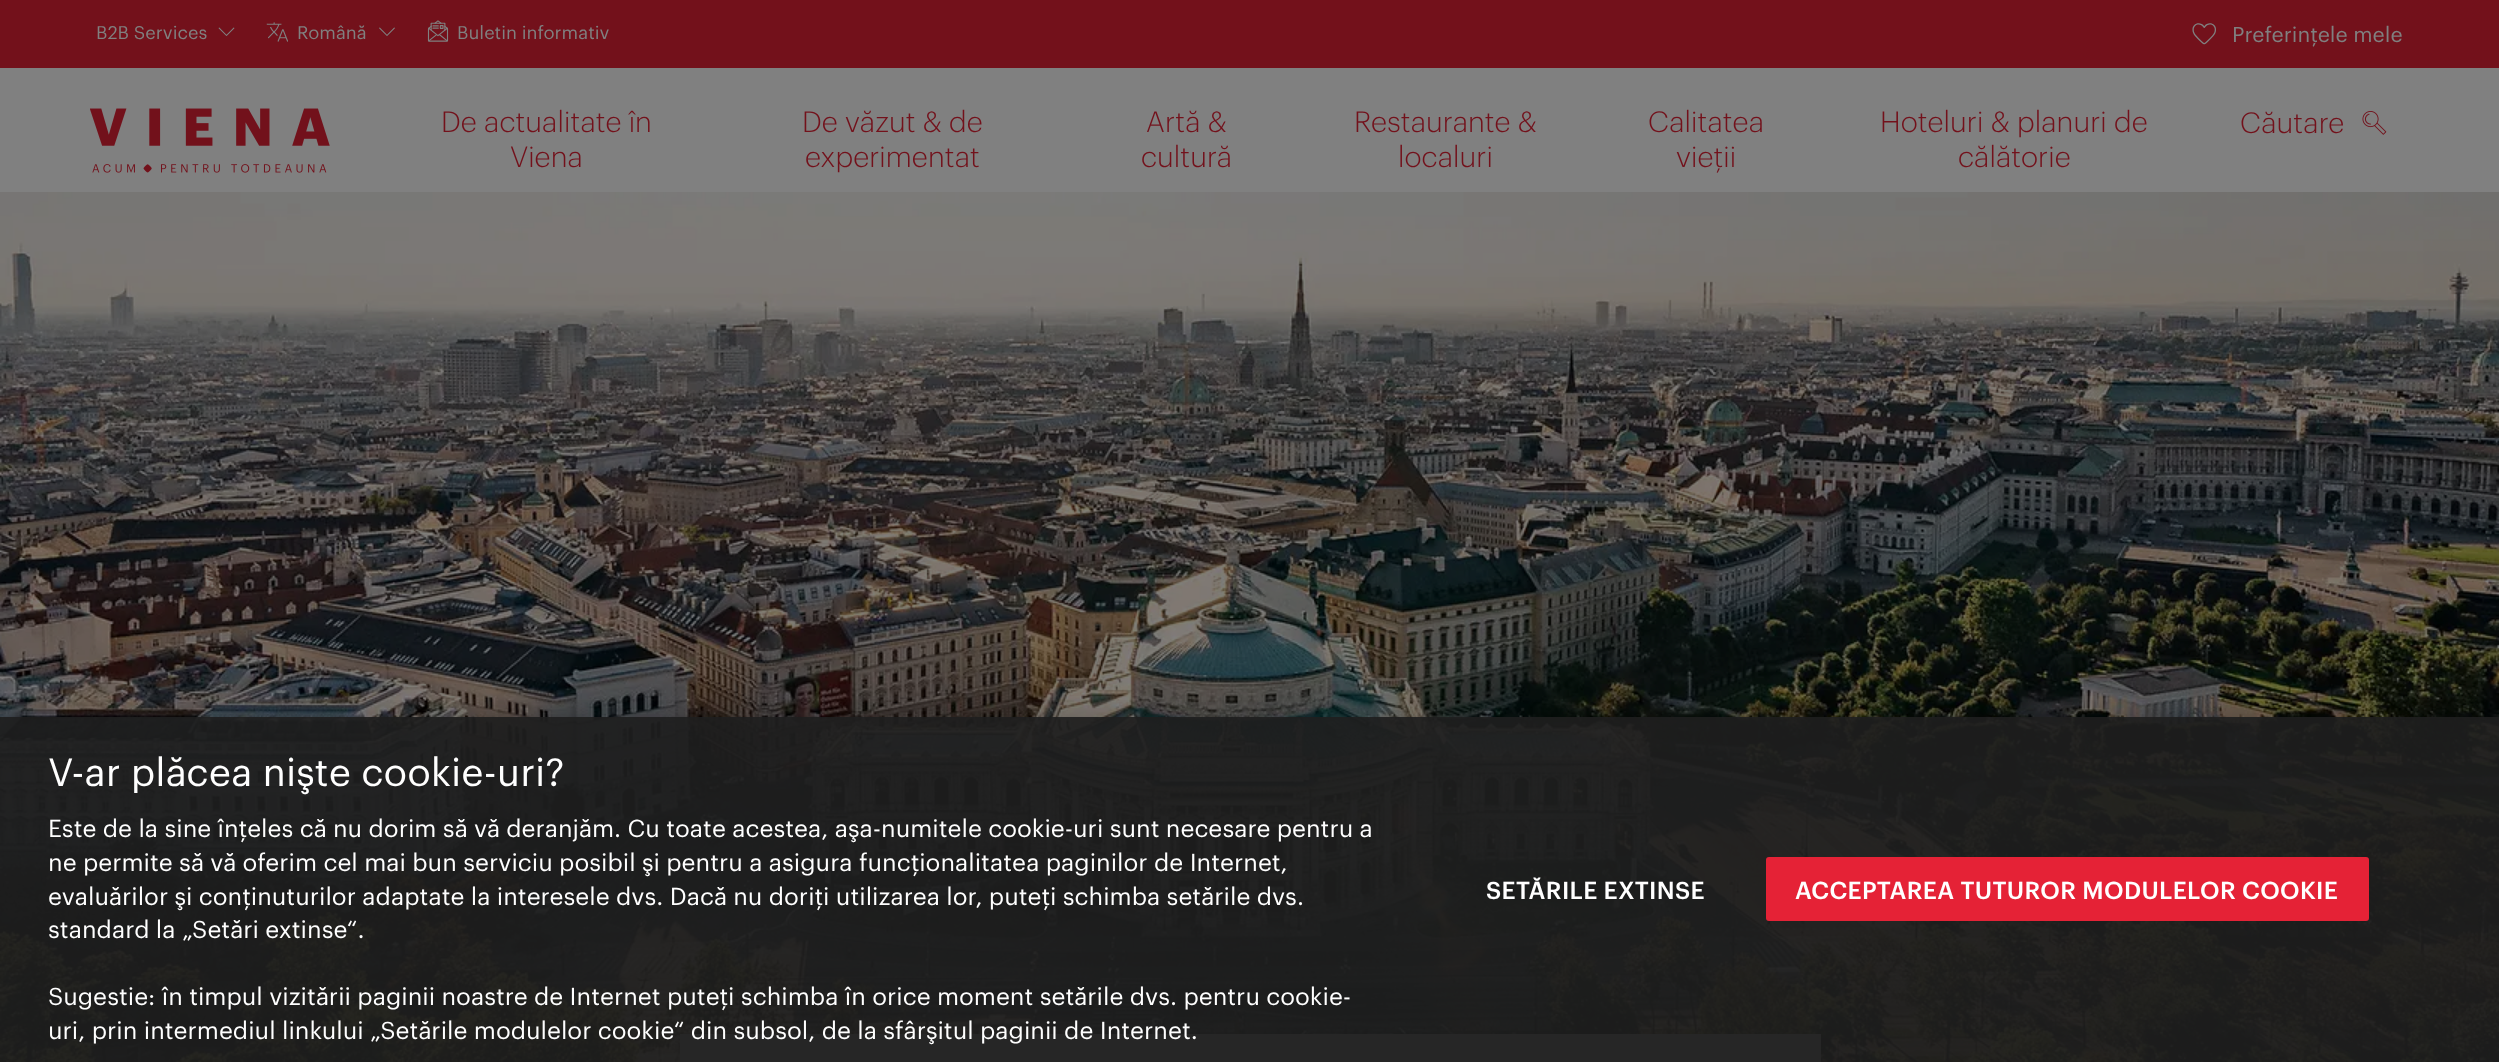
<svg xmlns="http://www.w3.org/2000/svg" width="2499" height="1062">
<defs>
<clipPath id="clip1"><rect x="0" y="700" width="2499" height="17"/></clipPath>
</defs>
<rect width="100%" height="100%" fill="#808080"/>
<rect width="2499" height="68" fill="#73111b"/>
<text x="96" y="39" style="font-family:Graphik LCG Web;font-size:18px;fill:#808080">B2B Services</text>
<image x="218" y="27" width="17" height="9" href="media/1.png"/>
<image x="266" y="22" width="22" height="20" href="media/2.png"/>
<text x="297" y="39" style="font-family:Graphik LCG Web;font-size:18px;fill:#808080">Română</text>
<image x="379" y="27" width="16" height="9" href="media/3.png"/>
<image x="427" y="20" width="22" height="22" href="media/4.png"/>
<text x="457" y="39" style="font-family:Graphik LCG Web;font-size:18px;fill:#808080">Buletin informativ</text>
<image x="2192" y="23" width="24" height="22" href="media/5.png"/>
<text x="2232" y="42" style="font-family:Graphik LCG Web;font-size:21px;fill:#808080">Preferinţele mele</text>
<image x="90" y="108" width="240" height="65" href="media/6.png"/>
<text x="441" y="132" style="font-family:Graphik LCG Web;font-size:28.75px;font-weight:300;fill:#73111b">De actualitate în</text>
<text x="510" y="167" style="font-family:Graphik LCG Web;font-size:28.75px;font-weight:300;fill:#73111b">Viena</text>
<text x="802" y="132" style="font-family:Graphik LCG Web;font-size:28.75px;font-weight:300;fill:#73111b">De văzut &amp; de</text>
<text x="805" y="167" style="font-family:Graphik LCG Web;font-size:28.75px;font-weight:300;fill:#73111b">experimentat</text>
<text x="1146" y="132" style="font-family:Graphik LCG Web;font-size:28.75px;font-weight:300;fill:#73111b">Artă &amp;</text>
<text x="1141" y="167" style="font-family:Graphik LCG Web;font-size:28.75px;font-weight:300;fill:#73111b">cultură</text>
<text x="1354" y="132" style="font-family:Graphik LCG Web;font-size:28.75px;font-weight:300;fill:#73111b">Restaurante &amp;</text>
<text x="1398" y="167" style="font-family:Graphik LCG Web;font-size:28.75px;font-weight:300;fill:#73111b">localuri</text>
<text x="1648" y="132" style="font-family:Graphik LCG Web;font-size:28.75px;font-weight:300;fill:#73111b">Calitatea</text>
<text x="1676" y="167" style="font-family:Graphik LCG Web;font-size:28.75px;font-weight:300;fill:#73111b">vieții</text>
<text x="1880" y="132" style="font-family:Graphik LCG Web;font-size:28.75px;font-weight:300;fill:#73111b">Hoteluri &amp; planuri de</text>
<text x="1958" y="167" style="font-family:Graphik LCG Web;font-size:28.75px;font-weight:300;fill:#73111b">călătorie</text>
<text x="2240" y="133" style="font-family:Graphik LCG Web;font-size:28.75px;font-weight:300;fill:#73111b">Căutare</text>
<image x="2362" y="111" width="25" height="24" href="media/7.png"/>
<image x="0" y="192" width="2499" height="870" href="media/8.png"/>
<rect x="680" y="1034" width="1141" height="28" fill="#808080"/>
<g clip-path="url(#clip1)">
<rect y="717" width="2499" height="345" fill="#00000033" filter="blur(13.5px)"/>
</g>
<rect y="717" width="2499" height="345" fill="#1e1e1eeb"/>
<text x="48" y="786" style="font-family:Graphik LCG Web;font-size:38.4px;fill:#fff">V-ar plăcea nişte cookie-uri?</text>
<text x="48" y="837" style="font-family:Graphik LCG Web;font-size:24px;fill:#fff">Este de la sine înţeles că nu dorim să vă deranjăm. Cu toate acestea, aşa-numitele cookie-uri sunt necesare pentru a</text>
<text x="48" y="871" style="font-family:Graphik LCG Web;font-size:24px;fill:#fff">ne permite să vă oferim cel mai bun serviciu posibil şi pentru a asigura funcţionalitatea paginilor de Internet,</text>
<text x="48" y="905" style="font-family:Graphik LCG Web;font-size:24px;fill:#fff">evaluărilor şi conţinuturilor adaptate la interesele dvs. Dacă nu doriţi utilizarea lor, puteţi schimba setările dvs.</text>
<text x="48" y="938" style="font-family:Graphik LCG Web;font-size:24px;fill:#fff">standard la „Setări extinse“.</text>
<text x="48" y="1005" style="font-family:Graphik LCG Web;font-size:24px;fill:#fff">Sugestie: în timpul vizitării paginii noastre de Internet puteţi schimba în orice moment setările dvs. pentru cookie-</text>
<text x="48" y="1039" style="font-family:Graphik LCG Web;font-size:24px;fill:#fff">uri, prin intermediul linkului „Setările modulelor cookie“ din subsol, de la sfârşitul paginii de Internet.</text>
<text x="1486" y="899" style="font-family:Graphik LCG Web;font-size:24px;font-weight:500;letter-spacing:0.25px;fill:#fff">SETĂRILE EXTINSE</text>
<rect x="1766" y="857" width="603" height="64" rx="3" fill="#e52236"/>
<text x="1795" y="899" style="font-family:Graphik LCG Web;font-size:24px;font-weight:500;letter-spacing:0.25px;fill:#fff">ACCEPTAREA TUTUROR MODULELOR COOKIE</text>
</svg>
